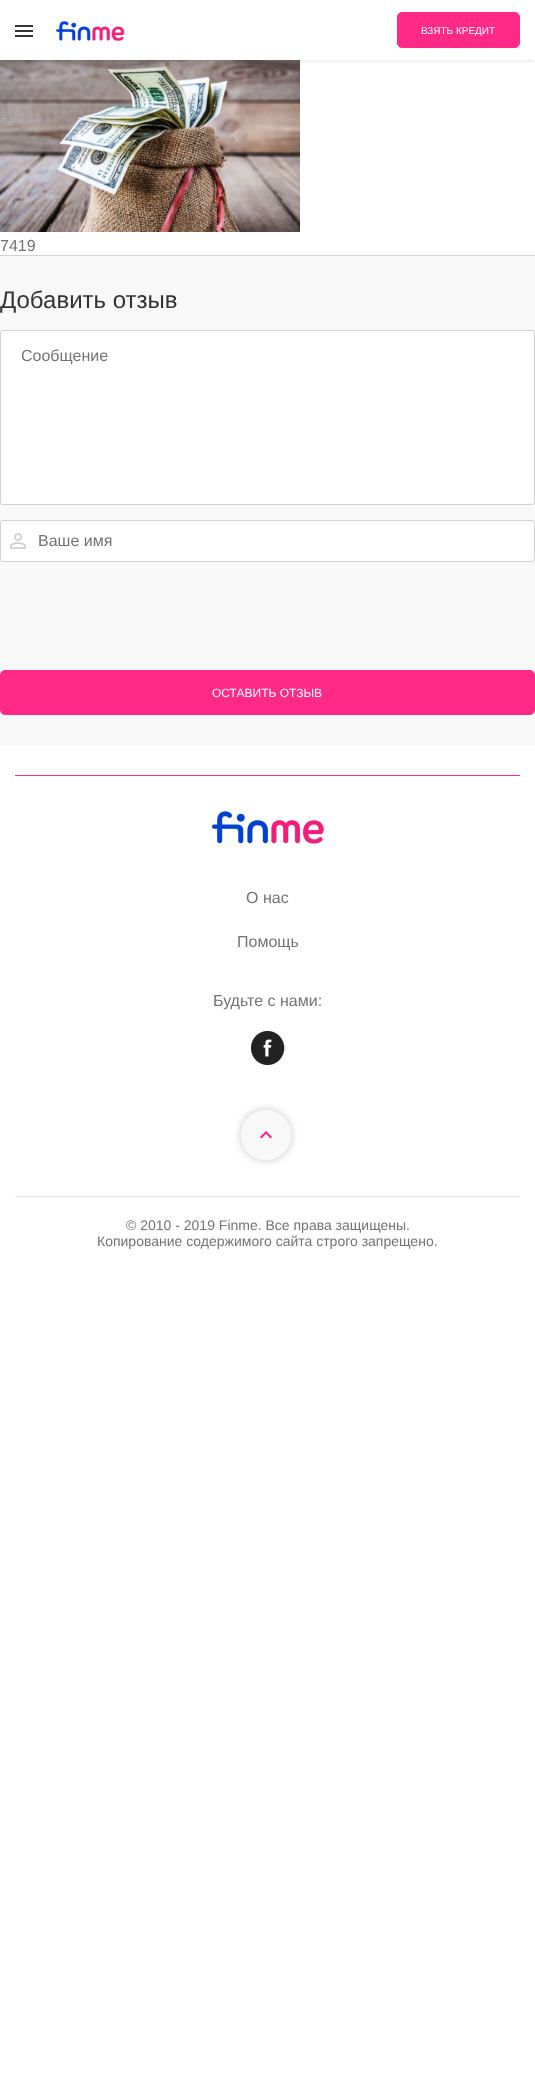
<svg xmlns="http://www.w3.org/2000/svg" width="535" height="2077">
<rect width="100%" height="100%" fill="#fff"/>
<image x="0" y="60" width="300" height="172" href="media/2.png"/>
<rect width="535" height="60" fill="#00000026" filter="blur(2.5px)"/>
<rect width="535" height="60" fill="#fff"/>
<rect x="15" y="25" width="18" height="2" fill="#333"/>
<rect x="15" y="30" width="18" height="2" fill="#333"/>
<rect x="15" y="35" width="18" height="2" fill="#333"/>
<image x="56" y="21" width="69" height="20" href="media/1.png"/>
<rect x="397.5" y="12.5" width="122" height="35" rx="4.5" fill="#ff2987" stroke="#ff2987"/>
<text x="421" y="34" style="font-family:Liberation Sans;font-size:10px;fill:#fff">ВЗЯТЬ КРЕДИТ</text>
<text x="0" y="251" style="font-family:Liberation Sans;font-size:16px;fill:#747373">7419</text>
<rect y="256" width="535" height="489" fill="#f8f8f8"/>
<rect y="255" width="535" height="1" fill="#d2d2d2"/>
<text x="0" y="308" style="font-family:Liberation Sans;font-size:24px;fill:#333">Добавить отзыв</text>
<rect x="0.5" y="330.5" width="534" height="174" rx="2.5" fill="#fff" stroke="#d2d2d2"/>
<text x="21" y="361" style="font-family:Liberation Sans;font-size:16px;fill:#747373">Сообщение</text>
<rect x="0.5" y="520.5" width="534" height="41" rx="2.5" fill="#fff" stroke="#d2d2d2"/>
<image x="10" y="533" width="16" height="16" href="media/3.png"/>
<text x="38" y="546" style="font-family:Liberation Sans;font-size:16px;fill:#747373">Ваше имя</text>
<rect x="0.5" y="670.5" width="534" height="44" rx="4.5" fill="#ff2987" stroke="#ff2987"/>
<text x="212" y="697" style="font-family:Liberation Sans;font-size:12px;fill:#fff">ОСТАВИТЬ ОТЗЫВ</text>
<rect x="15" y="775" width="505" height="1" fill="#ff2987"/>
<rect x="15" y="1196" width="505" height="1" fill="#e4e4e4"/>
<image x="212" y="811" width="112" height="33" href="media/4.png"/>
<text x="246" y="903" style="font-family:Liberation Sans;font-size:16px;fill:#747373">О нас</text>
<text x="237" y="947" style="font-family:Liberation Sans;font-size:16px;fill:#747373">Помощь</text>
<text x="213" y="1006" style="font-family:Liberation Sans;font-size:16px;fill:#747373">Будьте с нами:</text>
<image x="251" y="1031" width="34" height="34" href="media/5.png"/>
<image x="235" y="1104" width="62" height="62" href="media/6.png"/>
<text x="126" y="1230" style="font-family:Liberation Sans;font-size:14px;fill:#747373">© 2010 - 2019 Finme. Все права защищены.</text>
<text x="97" y="1246" style="font-family:Liberation Sans;font-size:14px;fill:#747373">Копирование содержимого сайта строго запрещено.</text>
</svg>
